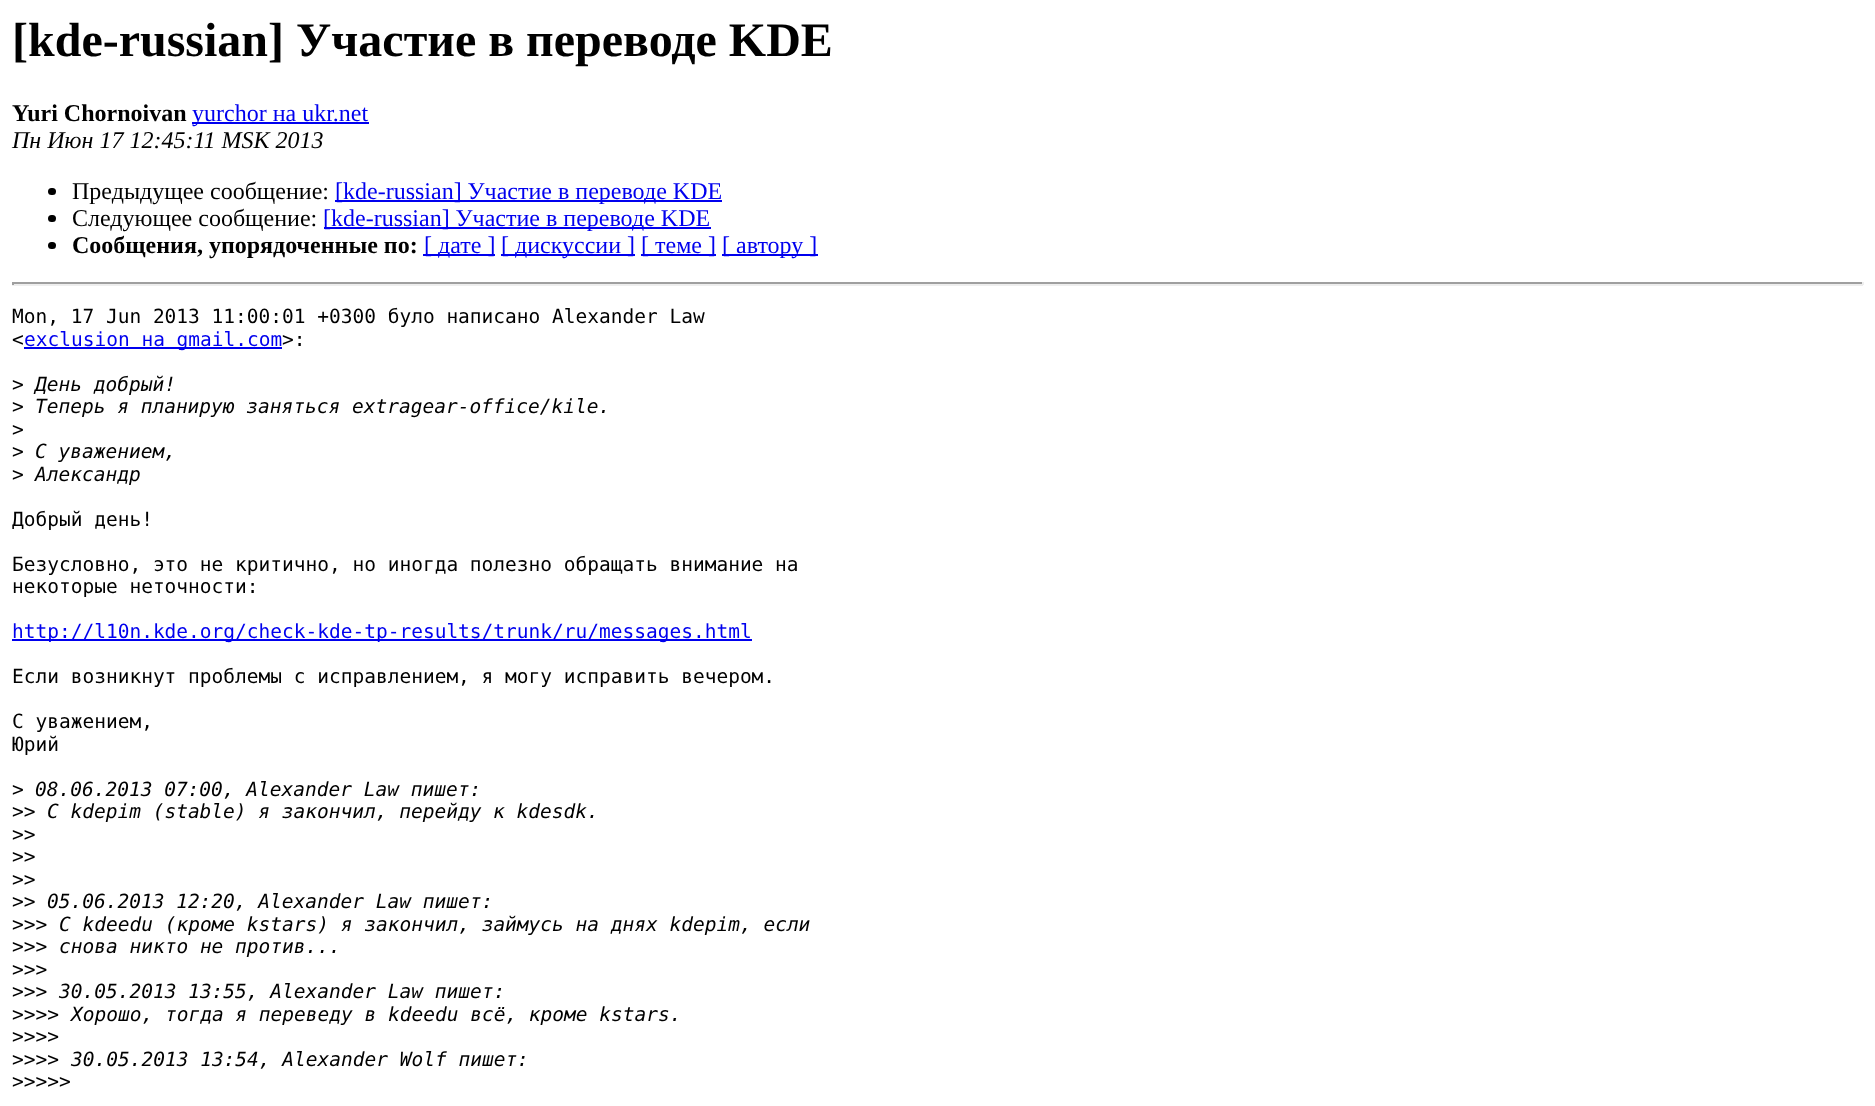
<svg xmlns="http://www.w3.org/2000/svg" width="1875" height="1106">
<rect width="100%" height="100%" fill="#fff"/>
<text x="12" y="56" style="font-family:Liberation Serif;font-size:48px;font-weight:bold;fill:#000">[kde-russian] Участие в переводе KDE</text>
<text x="12" y="121" style="font-family:Liberation Serif;font-size:24px;font-weight:bold;fill:#000">Yuri Chornoivan</text>
<rect x="192" y="122" width="177" height="2" fill="#00e"/>
<text x="192" y="121" style="font-family:Liberation Serif;font-size:24px;fill:#00e">yurchor на ukr.net</text>
<text x="12" y="148" style="font-family:Liberation Serif;font-size:24px;font-style:italic;fill:#000">Пн Июн 17 12:45:11 MSK 2013</text>
<rect x="48" y="188" width="8" height="7" rx="3.5" fill="#000"/>
<text x="72" y="199" style="font-family:Liberation Serif;font-size:24px;fill:#000">Предыдущее сообщение:</text>
<rect x="335" y="200" width="387" height="2" fill="#00e"/>
<text x="335" y="199" style="font-family:Liberation Serif;font-size:24px;fill:#00e">[kde-russian] Участие в переводе KDE</text>
<rect x="48" y="215" width="8" height="7" rx="3.5" fill="#000"/>
<text x="72" y="226" style="font-family:Liberation Serif;font-size:24px;fill:#000">Следующее сообщение:</text>
<rect x="324" y="227" width="387" height="2" fill="#00e"/>
<text x="323" y="226" style="font-family:Liberation Serif;font-size:24px;fill:#00e">[kde-russian] Участие в переводе KDE</text>
<rect x="48" y="242" width="8" height="7" rx="3.5" fill="#000"/>
<text x="72" y="253" style="font-family:Liberation Serif;font-size:24px;font-weight:bold;fill:#000">Сообщения, упорядоченные по:</text>
<rect x="423" y="254" width="72" height="2" fill="#00e"/>
<text x="424" y="253" style="font-family:Liberation Serif;font-size:24px;fill:#00e">[ дате ]</text>
<rect x="501" y="254" width="134" height="2" fill="#00e"/>
<text x="501" y="253" style="font-family:Liberation Serif;font-size:24px;fill:#00e">[ дискуссии ]</text>
<rect x="641" y="254" width="75" height="2" fill="#00e"/>
<text x="641" y="253" style="font-family:Liberation Serif;font-size:24px;fill:#00e">[ теме ]</text>
<rect x="722" y="254" width="96" height="2" fill="#00e"/>
<text x="722" y="253" style="font-family:Liberation Serif;font-size:24px;fill:#00e">[ автору ]</text>
<rect x="12" y="282" width="1851" height="2" fill="#9f9f9f"/>
<rect x="1862" y="282" width="2" height="3" fill="#eee"/>
<rect x="12" y="284" width="1851" height="2" fill="#eee"/>
<rect x="12" y="282" width="2" height="3" fill="#9f9f9f"/>
<text x="12" y="323" style="font-family:DejaVu Sans Mono;font-size:19.5px;fill:#000">Mon, 17 Jun 2013 11:00:01 +0300 було написано Alexander Law</text>
<text x="12" y="346" style="font-family:DejaVu Sans Mono;font-size:19.5px;fill:#000">&lt;</text>
<rect x="24" y="347" width="258" height="2" fill="#00e"/>
<text x="24" y="346" style="font-family:DejaVu Sans Mono;font-size:19.5px;fill:#00e">exclusion на gmail.com</text>
<text x="282" y="346" style="font-family:DejaVu Sans Mono;font-size:19.5px;fill:#000">&gt;:</text>
<text x="12" y="391" style="font-family:DejaVu Sans Mono;font-size:19.5px;fill:#000">&gt;</text>
<text x="35" y="391" style="font-family:DejaVu Sans Mono;font-size:19.5px;font-style:italic;fill:#000">День добрый!</text>
<text x="12" y="413" style="font-family:DejaVu Sans Mono;font-size:19.5px;fill:#000">&gt;</text>
<text x="35" y="413" style="font-family:DejaVu Sans Mono;font-size:19.5px;font-style:italic;fill:#000">Теперь я планирую заняться extragear-office/kile.</text>
<text x="12" y="436" style="font-family:DejaVu Sans Mono;font-size:19.5px;fill:#000">&gt;</text>
<text x="12" y="458" style="font-family:DejaVu Sans Mono;font-size:19.5px;fill:#000">&gt;</text>
<text x="35" y="458" style="font-family:DejaVu Sans Mono;font-size:19.5px;font-style:italic;fill:#000">С уважением,</text>
<text x="12" y="481" style="font-family:DejaVu Sans Mono;font-size:19.5px;fill:#000">&gt;</text>
<text x="35" y="481" style="font-family:DejaVu Sans Mono;font-size:19.5px;font-style:italic;fill:#000">Александр</text>
<text x="12" y="526" style="font-family:DejaVu Sans Mono;font-size:19.5px;fill:#000">Добрый день!</text>
<text x="12" y="571" style="font-family:DejaVu Sans Mono;font-size:19.5px;fill:#000">Безусловно, это не критично, но иногда полезно обращать внимание на</text>
<text x="12" y="593" style="font-family:DejaVu Sans Mono;font-size:19.5px;fill:#000">некоторые неточности:</text>
<rect x="12" y="639" width="740" height="2" fill="#00e"/>
<text x="12" y="638" style="font-family:DejaVu Sans Mono;font-size:19.5px;fill:#00e">http://l10n.kde.org/check-kde-tp-results/trunk/ru/messages.html</text>
<text x="12" y="683" style="font-family:DejaVu Sans Mono;font-size:19.5px;fill:#000">Если возникнут проблемы с исправлением, я могу исправить вечером.</text>
<text x="12" y="728" style="font-family:DejaVu Sans Mono;font-size:19.5px;fill:#000">С уважением,</text>
<text x="12" y="751" style="font-family:DejaVu Sans Mono;font-size:19.5px;fill:#000">Юрий</text>
<text x="12" y="796" style="font-family:DejaVu Sans Mono;font-size:19.5px;fill:#000">&gt;</text>
<text x="35" y="796" style="font-family:DejaVu Sans Mono;font-size:19.5px;font-style:italic;fill:#000">08.06.2013 07:00, Alexander Law пишет:</text>
<text x="12" y="818" style="font-family:DejaVu Sans Mono;font-size:19.5px;fill:#000">&gt;&gt;</text>
<text x="47" y="818" style="font-family:DejaVu Sans Mono;font-size:19.5px;font-style:italic;fill:#000">С kdepim (stable) я закончил, перейду к kdesdk.</text>
<text x="12" y="841" style="font-family:DejaVu Sans Mono;font-size:19.5px;fill:#000">&gt;&gt;</text>
<text x="12" y="863" style="font-family:DejaVu Sans Mono;font-size:19.5px;fill:#000">&gt;&gt;</text>
<text x="12" y="886" style="font-family:DejaVu Sans Mono;font-size:19.5px;fill:#000">&gt;&gt;</text>
<text x="12" y="908" style="font-family:DejaVu Sans Mono;font-size:19.5px;fill:#000">&gt;&gt;</text>
<text x="47" y="908" style="font-family:DejaVu Sans Mono;font-size:19.5px;font-style:italic;fill:#000">05.06.2013 12:20, Alexander Law пишет:</text>
<text x="12" y="931" style="font-family:DejaVu Sans Mono;font-size:19.5px;fill:#000">&gt;&gt;&gt;</text>
<text x="59" y="931" style="font-family:DejaVu Sans Mono;font-size:19.5px;font-style:italic;fill:#000">С kdeedu (кроме kstars) я закончил, займусь на днях kdepim, если</text>
<text x="12" y="953" style="font-family:DejaVu Sans Mono;font-size:19.5px;fill:#000">&gt;&gt;&gt;</text>
<text x="59" y="953" style="font-family:DejaVu Sans Mono;font-size:19.5px;font-style:italic;fill:#000">снова никто не против...</text>
<text x="12" y="976" style="font-family:DejaVu Sans Mono;font-size:19.5px;fill:#000">&gt;&gt;&gt;</text>
<text x="12" y="998" style="font-family:DejaVu Sans Mono;font-size:19.5px;fill:#000">&gt;&gt;&gt;</text>
<text x="59" y="998" style="font-family:DejaVu Sans Mono;font-size:19.5px;font-style:italic;fill:#000">30.05.2013 13:55, Alexander Law пишет:</text>
<text x="12" y="1021" style="font-family:DejaVu Sans Mono;font-size:19.5px;fill:#000">&gt;&gt;&gt;&gt;</text>
<text x="71" y="1021" style="font-family:DejaVu Sans Mono;font-size:19.5px;font-style:italic;fill:#000">Хорошо, тогда я переведу в kdeedu всё, кроме kstars.</text>
<text x="12" y="1043" style="font-family:DejaVu Sans Mono;font-size:19.5px;fill:#000">&gt;&gt;&gt;&gt;</text>
<text x="12" y="1066" style="font-family:DejaVu Sans Mono;font-size:19.5px;fill:#000">&gt;&gt;&gt;&gt;</text>
<text x="71" y="1066" style="font-family:DejaVu Sans Mono;font-size:19.5px;font-style:italic;fill:#000">30.05.2013 13:54, Alexander Wolf пишет:</text>
<text x="12" y="1088" style="font-family:DejaVu Sans Mono;font-size:19.5px;fill:#000">&gt;&gt;&gt;&gt;&gt;</text>
</svg>
